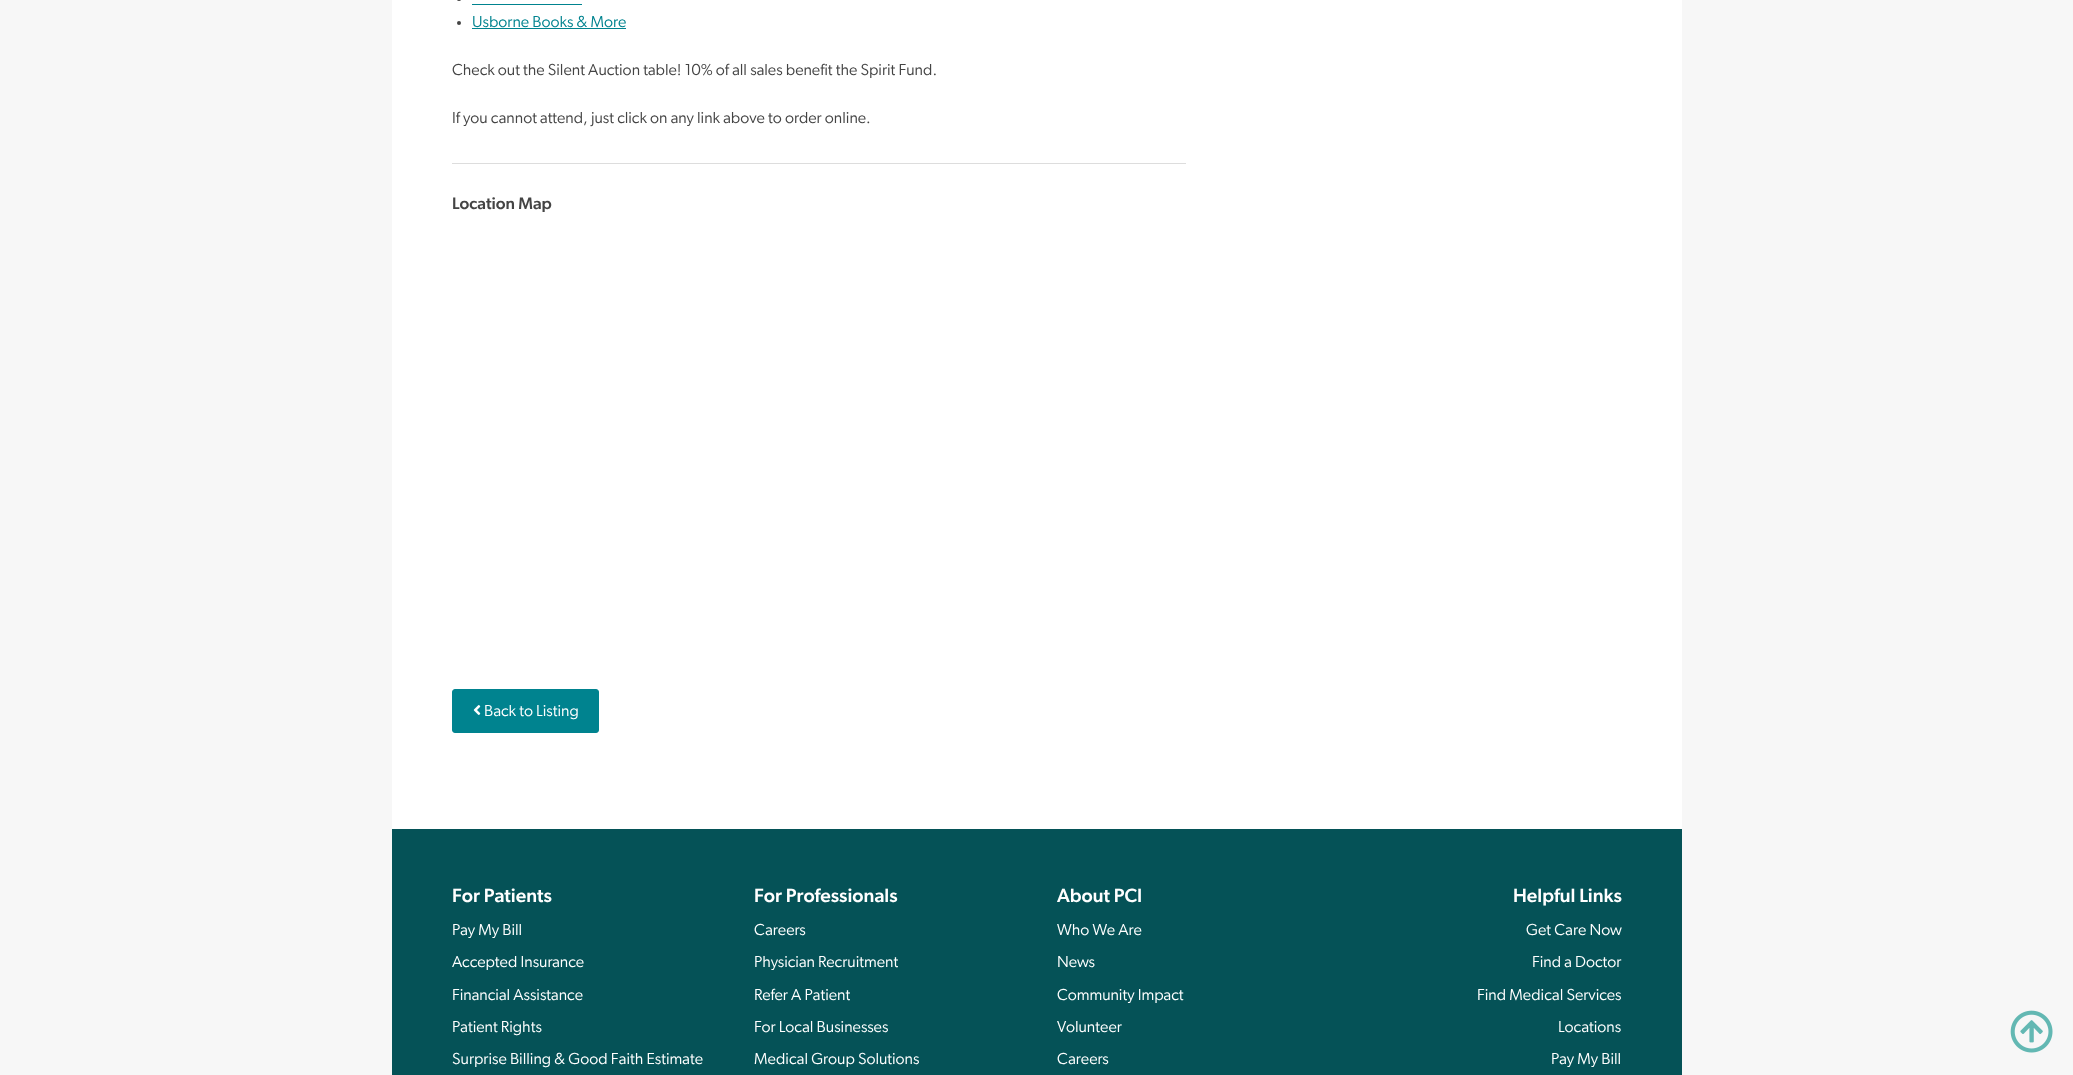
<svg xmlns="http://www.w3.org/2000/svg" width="2073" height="1075">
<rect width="100%" height="100%" fill="#f7f7f7"/>
<rect x="392" width="1290" height="829" fill="#fff"/>
<rect x="457" y="-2" width="4" height="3" rx="2" fill="#444"/>
<rect x="472" y="4" width="110" height="1" fill="#00838f"/>
<circle cx="459" cy="23" r="2" fill="#444"/>
<text x="472" y="27" style="font-family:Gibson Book;font-size:16px;fill:#00838f">Usborne Books &amp; More</text>
<rect x="472" y="28" width="154" height="1" fill="#00838f"/>
<text x="452" y="75" style="font-family:Gibson Book;font-size:16px;fill:#444">Check out the Silent Auction table! 10% of all sales benefit the Spirit Fund.</text>
<text x="452" y="123" style="font-family:Gibson Book;font-size:16px;fill:#444">If you cannot attend, just click on any link above to order online.</text>
<rect x="452" y="163" width="734" height="1" fill="#ddd"/>
<text x="452" y="209" style="font-family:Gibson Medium;font-size:16.75px;font-weight:500;fill:#444">Location Map</text>
<rect x="452.5" y="689.5" width="146" height="43" rx="2.5" fill="#00838f" stroke="#00838f"/>
<image x="473" y="705" width="8" height="10" href="media/1.png"/>
<text x="484" y="716" style="font-family:Gibson Book;font-size:16px;fill:#fff">Back to Listing</text>
<rect x="392" y="829" width="1290" height="246" fill="#055257"/>
<text x="452" y="902" style="font-family:Gibson Medium;font-size:19.25px;font-weight:500;fill:#fff">For Patients</text>
<text x="452" y="935" style="font-family:Gibson Book;font-size:16px;fill:#fff">Pay My Bill</text>
<text x="452" y="967" style="font-family:Gibson Book;font-size:16px;fill:#fff">Accepted Insurance</text>
<text x="452" y="1000" style="font-family:Gibson Book;font-size:16px;fill:#fff">Financial Assistance</text>
<text x="452" y="1032" style="font-family:Gibson Book;font-size:16px;fill:#fff">Patient Rights</text>
<text x="452" y="1064" style="font-family:Gibson Book;font-size:16px;fill:#fff">Surprise Billing &amp; Good Faith Estimate</text>
<text x="754" y="902" style="font-family:Gibson Medium;font-size:19.25px;font-weight:500;fill:#fff">For Professionals</text>
<text x="754" y="935" style="font-family:Gibson Book;font-size:16px;fill:#fff">Careers</text>
<text x="754" y="967" style="font-family:Gibson Book;font-size:16px;fill:#fff">Physician Recruitment</text>
<text x="754" y="1000" style="font-family:Gibson Book;font-size:16px;fill:#fff">Refer A Patient</text>
<text x="754" y="1032" style="font-family:Gibson Book;font-size:16px;fill:#fff">For Local Businesses</text>
<text x="754" y="1064" style="font-family:Gibson Book;font-size:16px;fill:#fff">Medical Group Solutions</text>
<text x="1057" y="902" style="font-family:Gibson Medium;font-size:19.25px;font-weight:500;fill:#fff">About PCI</text>
<text x="1057" y="935" style="font-family:Gibson Book;font-size:16px;fill:#fff">Who We Are</text>
<text x="1057" y="967" style="font-family:Gibson Book;font-size:16px;fill:#fff">News</text>
<text x="1057" y="1000" style="font-family:Gibson Book;font-size:16px;fill:#fff">Community Impact</text>
<text x="1057" y="1032" style="font-family:Gibson Book;font-size:16px;fill:#fff">Volunteer</text>
<text x="1057" y="1064" style="font-family:Gibson Book;font-size:16px;fill:#fff">Careers</text>
<text x="1513" y="902" style="font-family:Gibson Medium;font-size:19.25px;font-weight:500;fill:#fff">Helpful Links</text>
<text x="1526" y="935" style="font-family:Gibson Book;font-size:16px;fill:#fff">Get Care Now</text>
<text x="1532" y="967" style="font-family:Gibson Book;font-size:16px;fill:#fff">Find a Doctor</text>
<text x="1477" y="1000" style="font-family:Gibson Book;font-size:16px;fill:#fff">Find Medical Services</text>
<text x="1558" y="1032" style="font-family:Gibson Book;font-size:16px;fill:#fff">Locations</text>
<text x="1551" y="1064" style="font-family:Gibson Book;font-size:16px;fill:#fff">Pay My Bill</text>
<image x="2010" y="1010" width="43" height="43" href="media/2.png"/>
</svg>
